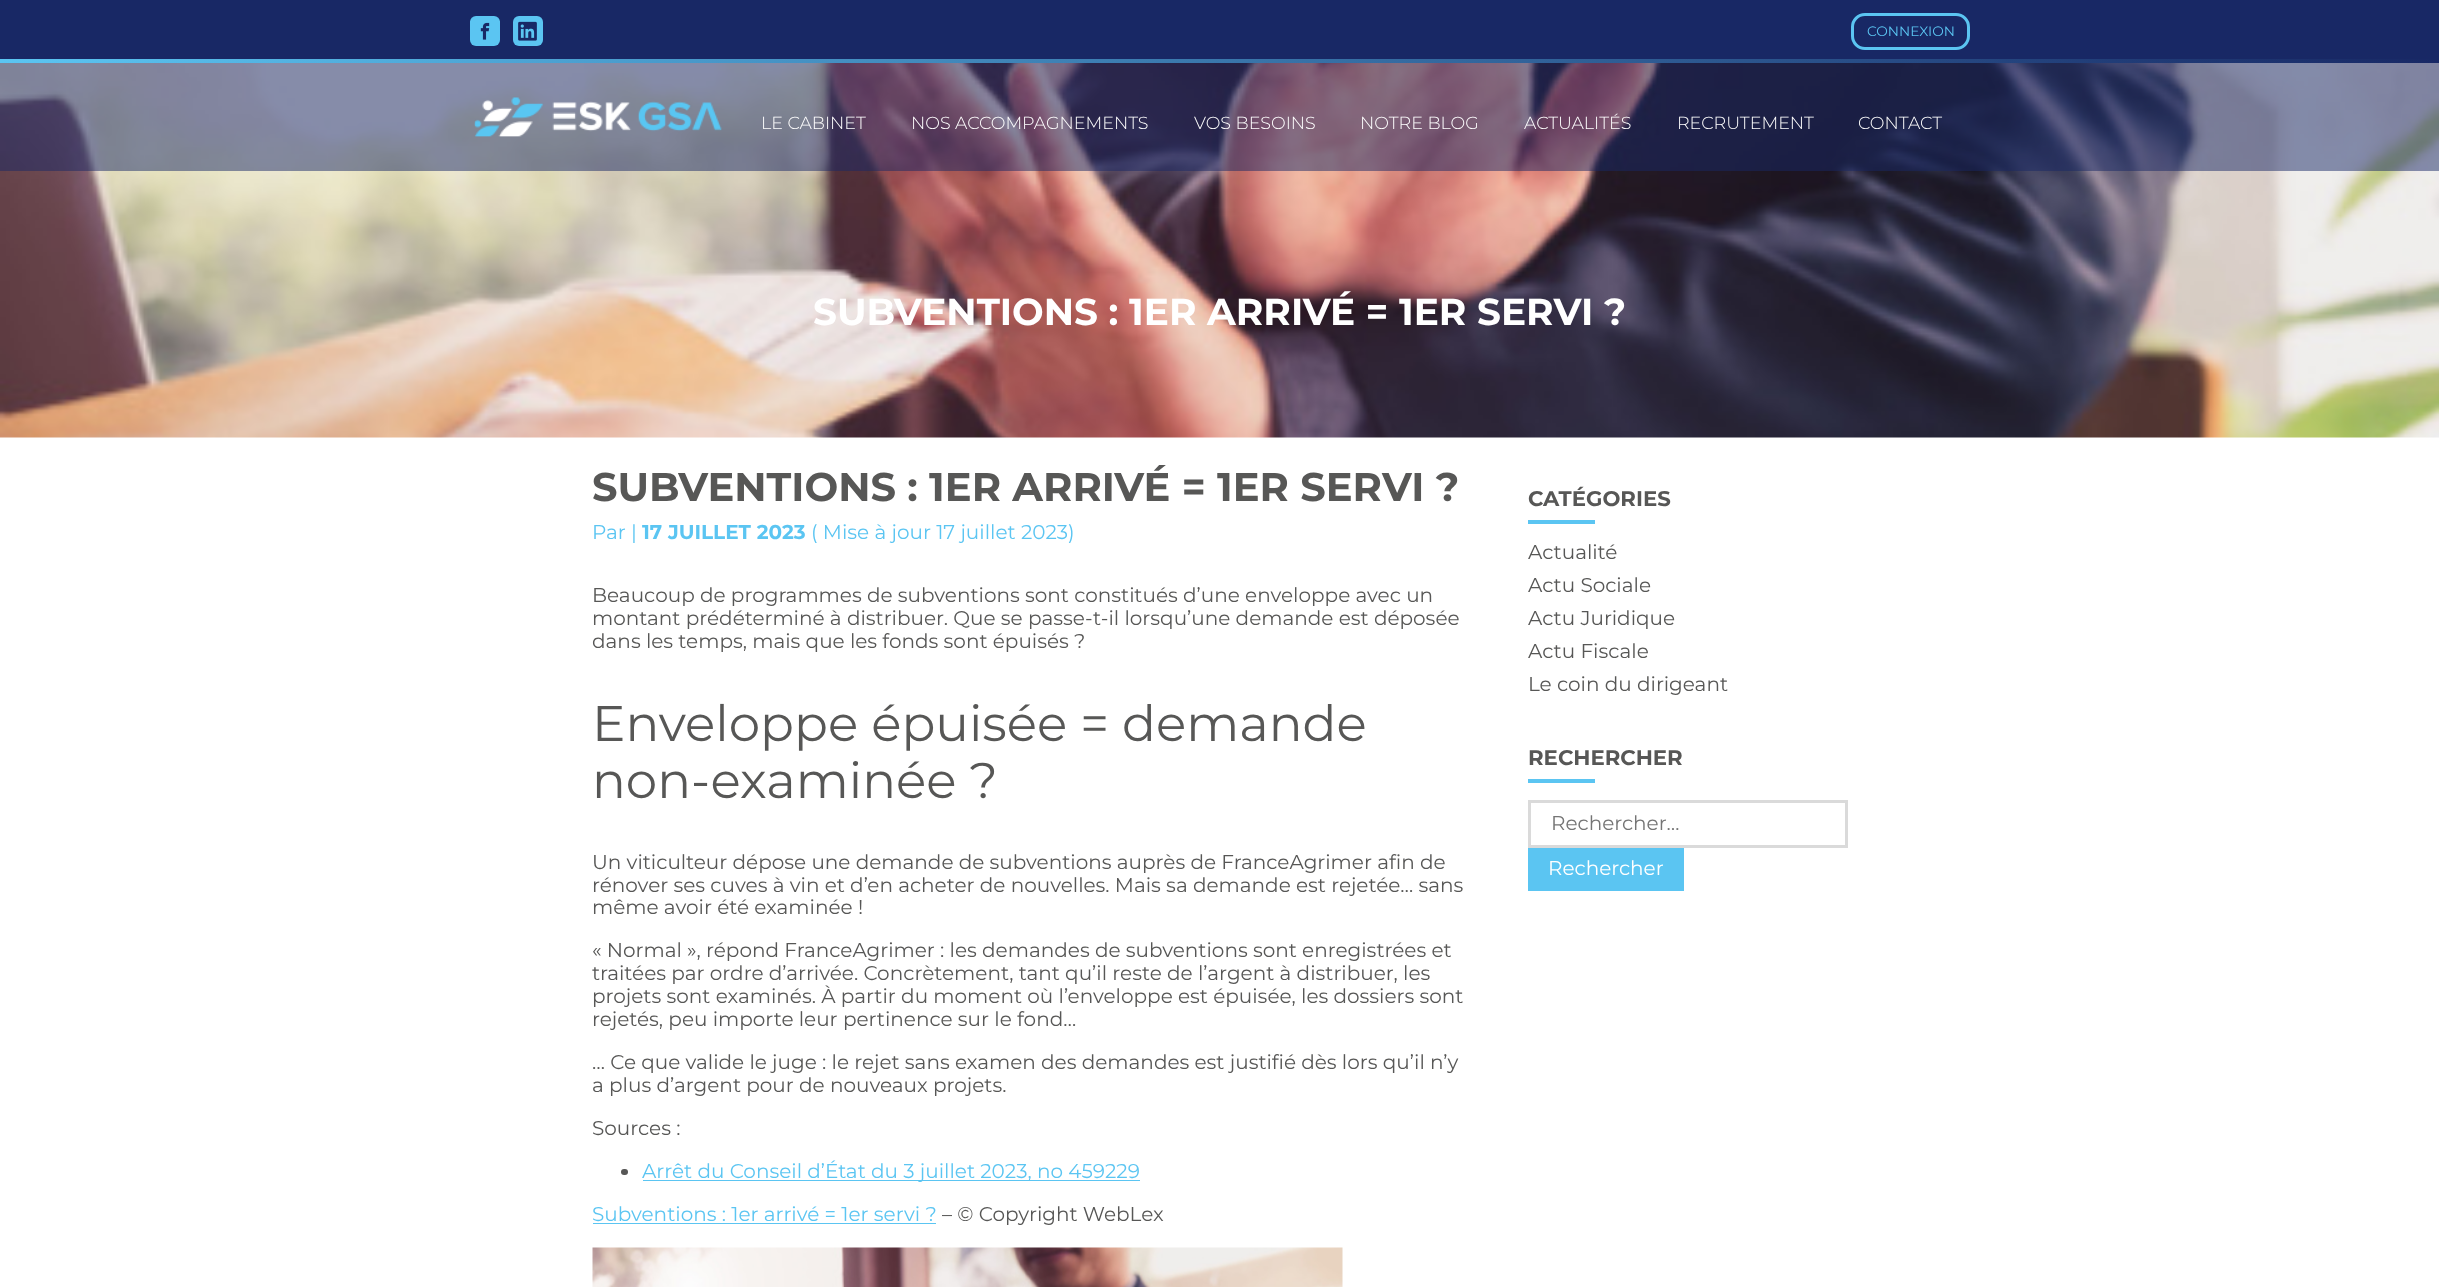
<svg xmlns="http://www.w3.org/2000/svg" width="2439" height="1287">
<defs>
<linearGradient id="g1" gradientUnits="userSpaceOnUse" x1="0" y1="61" x2="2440" y2="61"><stop offset="0" stop-color="#5bc5f2"/><stop offset="1" stop-color="#182865"/></linearGradient>
</defs>
<rect width="100%" height="100%" fill="#fff"/>
<rect width="2439" height="59" fill="#182865"/>
<rect x="470" y="16" width="30" height="30" rx="6" fill="#5bc5f2"/>
<image x="480" y="22" width="10" height="18" href="media/1.png"/>
<rect x="513" y="16" width="30" height="30" rx="6" fill="#5bc5f2"/>
<image x="518" y="21" width="19" height="20" href="media/2.png"/>
<rect x="1852.5" y="14.5" width="116" height="34" rx="12.5" fill="none" stroke="#5bc5f2" stroke-width="3"/>
<text x="1867" y="36" style="font-family:Montserrat;font-size:13.75px;fill:#5bc5f2">CONNEXION</text>
<rect y="59" width="2439" height="4" fill="url(#g1)"/>
<image x="0" y="63" width="2439" height="375" href="media/4.png"/>
<rect y="63" width="2439" height="108" fill="#18286580"/>
<image x="474" y="97" width="248" height="40" href="media/3.png"/>
<text x="761" y="129" style="font-family:Montserrat;font-size:17.5px;font-weight:300;fill:#fff">LE CABINET</text>
<text x="911" y="129" style="font-family:Montserrat;font-size:17.5px;font-weight:300;fill:#fff">NOS ACCOMPAGNEMENTS</text>
<text x="1194" y="129" style="font-family:Montserrat;font-size:17.5px;font-weight:300;fill:#fff">VOS BESOINS</text>
<text x="1360" y="129" style="font-family:Montserrat;font-size:17.5px;font-weight:300;fill:#fff">NOTRE BLOG</text>
<text x="1524" y="129" style="font-family:Montserrat;font-size:17.5px;font-weight:300;fill:#fff">ACTUALITÉS</text>
<text x="1677" y="129" style="font-family:Montserrat;font-size:17.5px;font-weight:300;fill:#fff">RECRUTEMENT</text>
<text x="1858" y="129" style="font-family:Montserrat;font-size:17.5px;font-weight:300;fill:#fff">CONTACT</text>
<text x="813" y="325" style="font-family:Montserrat;font-size:37.5px;font-weight:bold;fill:#fff">SUBVENTIONS : 1ER ARRIVÉ = 1ER SERVI ?</text>
<text x="592" y="501" style="font-family:Montserrat;font-size:40px;font-weight:bold;fill:#575756">SUBVENTIONS : 1ER ARRIVÉ = 1ER SERVI ?</text>
<text x="592" y="539" style="font-family:Montserrat;font-size:20px;fill:#5bc5f2">Par |</text>
<text x="642" y="539" style="font-family:Montserrat;font-size:20px;font-weight:bold;fill:#5bc5f2">17 JUILLET 2023</text>
<text x="811" y="539" style="font-family:Montserrat;font-size:20px;fill:#5bc5f2">( Mise à jour 17 juillet 2023)</text>
<text x="592" y="602" style="font-family:Montserrat;font-size:20px;fill:#575756">Beaucoup de programmes de subventions sont constitués d’une enveloppe avec un</text>
<text x="592" y="625" style="font-family:Montserrat;font-size:20px;fill:#575756">montant prédéterminé à distribuer. Que se passe-t-il lorsqu’une demande est déposée</text>
<text x="592" y="648" style="font-family:Montserrat;font-size:20px;fill:#575756">dans les temps, mais que les fonds sont épuisés ?</text>
<text x="592" y="741" style="font-family:Montserrat;font-size:50px;fill:#575756">Enveloppe épuisée = demande</text>
<text x="592" y="798" style="font-family:Montserrat;font-size:50px;fill:#575756">non-examinée ?</text>
<text x="592" y="869" style="font-family:Montserrat;font-size:20px;fill:#575756">Un viticulteur dépose une demande de subventions auprès de FranceAgrimer afin de</text>
<text x="592" y="892" style="font-family:Montserrat;font-size:20px;fill:#575756">rénover ses cuves à vin et d’en acheter de nouvelles. Mais sa demande est rejetée… sans</text>
<text x="592" y="914" style="font-family:Montserrat;font-size:20px;fill:#575756">même avoir été examinée !</text>
<text x="592" y="957" style="font-family:Montserrat;font-size:20px;fill:#575756">« Normal », répond FranceAgrimer : les demandes de subventions sont enregistrées et</text>
<text x="592" y="980" style="font-family:Montserrat;font-size:20px;fill:#575756">traitées par ordre d’arrivée. Concrètement, tant qu’il reste de l’argent à distribuer, les</text>
<text x="592" y="1003" style="font-family:Montserrat;font-size:20px;fill:#575756">projets sont examinés. À partir du moment où l’enveloppe est épuisée, les dossiers sont</text>
<text x="592" y="1026" style="font-family:Montserrat;font-size:20px;fill:#575756">rejetés, peu importe leur pertinence sur le fond…</text>
<text x="592" y="1069" style="font-family:Montserrat;font-size:20px;fill:#575756">… Ce que valide le juge : le rejet sans examen des demandes est justifié dès lors qu’il n’y</text>
<text x="592" y="1092" style="font-family:Montserrat;font-size:20px;fill:#575756">a plus d’argent pour de nouveaux projets.</text>
<text x="592" y="1135" style="font-family:Montserrat;font-size:20px;fill:#575756">Sources :</text>
<rect x="621" y="1169" width="7" height="6" rx="3" fill="#575756"/>
<rect x="643" y="1180" width="497" height="1" fill="#5bc5f2"/>
<text x="642" y="1178" style="font-family:Montserrat;font-size:20px;fill:#5bc5f2">Arrêt du Conseil d’État du 3 juillet 2023, no 459229</text>
<text x="592" y="1221" style="font-family:Montserrat;font-size:20px;fill:#5bc5f2">Subventions : 1er arrivé = 1er servi ?</text>
<rect x="593" y="1223" width="343" height="1" fill="#5bc5f2"/>
<text x="942" y="1221" style="font-family:Montserrat;font-size:20px;fill:#575756">– © Copyright WebLex</text>
<image x="592" y="1247" width="751" height="40" href="media/5.png"/>
<text x="1528" y="506" style="font-family:Montserrat;font-size:21.25px;font-weight:bold;fill:#575756">CATÉGORIES</text>
<rect x="1528" y="520" width="67" height="4" fill="#5bc5f2"/>
<text x="1528" y="559" style="font-family:Montserrat;font-size:20px;fill:#575756">Actualité</text>
<text x="1528" y="592" style="font-family:Montserrat;font-size:20px;fill:#575756">Actu Sociale</text>
<text x="1528" y="625" style="font-family:Montserrat;font-size:20px;fill:#575756">Actu Juridique</text>
<text x="1528" y="658" style="font-family:Montserrat;font-size:20px;fill:#575756">Actu Fiscale</text>
<text x="1528" y="691" style="font-family:Montserrat;font-size:20px;fill:#575756">Le coin du dirigeant</text>
<text x="1528" y="765" style="font-family:Montserrat;font-size:21.25px;font-weight:bold;fill:#575756">RECHERCHER</text>
<rect x="1528" y="779" width="67" height="4" fill="#5bc5f2"/>
<rect x="1529.5" y="801.5" width="317" height="45" fill="none" stroke="#dadada" stroke-width="3"/>
<text x="1551" y="830" style="font-family:Montserrat;font-size:20px;fill:#757575">Rechercher…</text>
<rect x="1528" y="848" width="156" height="43" fill="#5bc5f2"/>
<text x="1548" y="875" style="font-family:Montserrat;font-size:20px;fill:#fff">Rechercher</text>
</svg>
